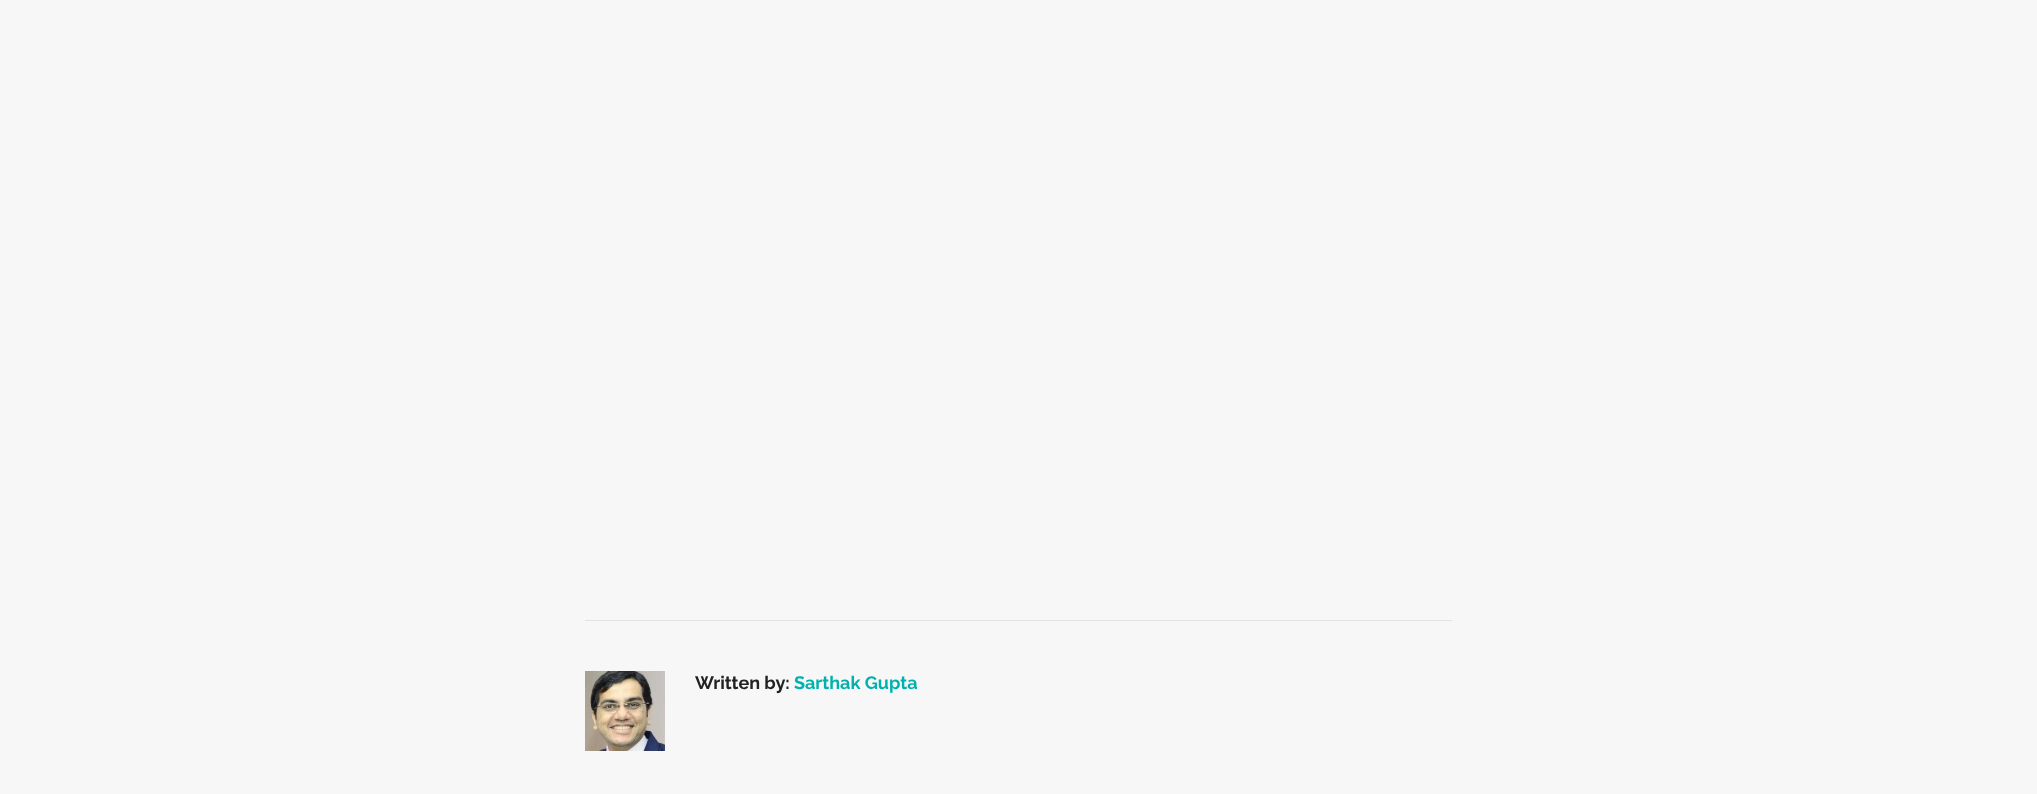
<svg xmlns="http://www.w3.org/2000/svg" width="2037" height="794">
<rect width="100%" height="100%" fill="#f7f7f7"/>
<rect x="585" y="620" width="867" height="1" fill="#e3e3e3"/>
<image x="585" y="671" width="80" height="80" href="media/1.png"/>
<text x="695" y="689" style="font-family:Raleway;font-size:18px;font-weight:bold;fill:#222">Written by:</text>
<text x="794" y="689" style="font-family:Raleway;font-size:18px;font-weight:bold;fill:#01b1ae">Sarthak Gupta</text>
</svg>
